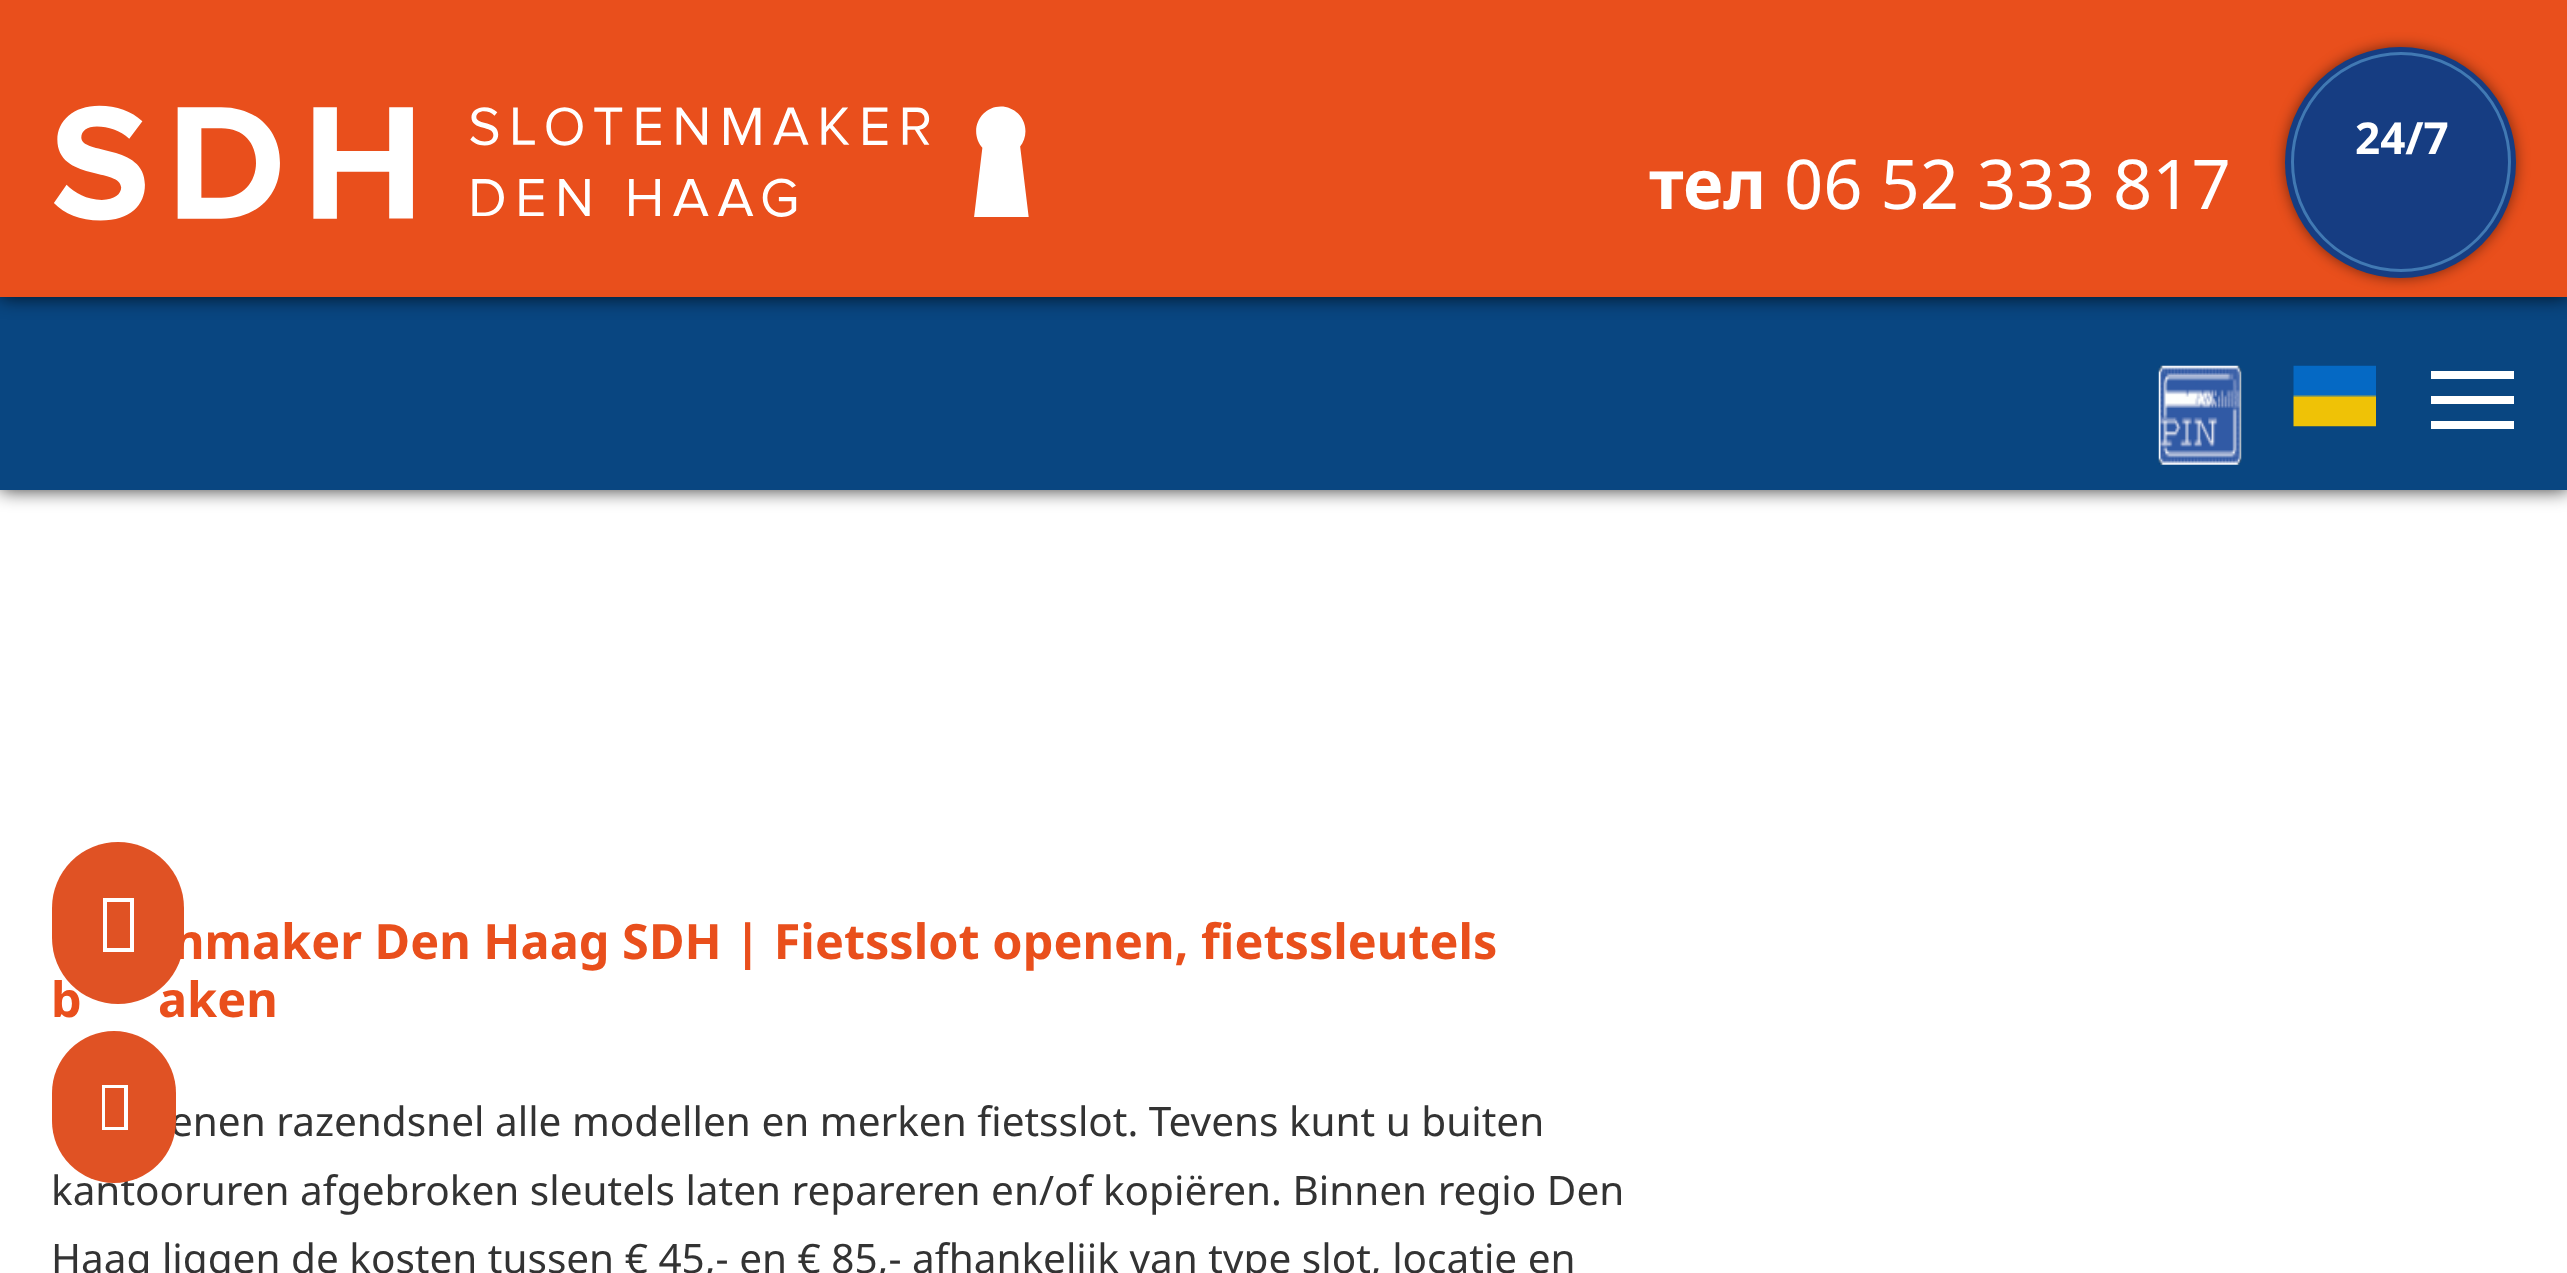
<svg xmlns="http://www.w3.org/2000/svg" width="2567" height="1273">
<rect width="100%" height="100%" fill="#fff"/>
<rect y="297" width="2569" height="193" fill="#000000cc" filter="blur(9.5px)"/>
<rect y="297" width="2567" height="193" fill="#094681"/>
<rect width="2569" height="297" fill="#000000cc" filter="blur(9.5px)"/>
<rect width="2567" height="297" fill="#e94f1c"/>
<image x="54" y="105" width="975" height="116" href="media/1.png"/>
<rect x="2285" y="47" width="231" height="231" rx="115.5" fill="#00000080" filter="blur(7px)"/>
<circle cx="2400.5" cy="162.5" r="115.5" fill="#163d82"/>
<circle cx="2401" cy="162" r="108.5" fill="none" stroke="#4179b3" stroke-width="3"/>
<text x="2355" y="154" style="font-family:Noto Sans;font-size:44px;font-weight:bold;fill:#fff">24/7</text>
<text x="1649" y="209" style="font-family:Noto Sans;font-size:68.75px;font-weight:bold;fill:#fff">тел</text>
<text x="1784" y="209" style="font-family:Noto Sans;font-size:68.75px;fill:#fff">06 52 333 817</text>
<image x="2158" y="365" width="84" height="100" href="media/2.png"/>
<image x="2293" y="365" width="83" height="62" href="media/3.png"/>
<rect x="2431" y="371" width="83" height="8" fill="#fff"/>
<rect x="2431" y="421" width="83" height="8" fill="#fff"/>
<rect x="2431" y="396" width="83" height="8" fill="#fff"/>
<text x="173" y="959" style="font-family:Noto Sans;font-size:48.6px;font-weight:bold;fill:#e94f1c">nmaker Den Haag SDH | Fietsslot openen, fietssleutels</text>
<text x="51" y="1017" style="font-family:Noto Sans;font-size:48.6px;font-weight:bold;fill:#e94f1c">b</text>
<text x="158" y="1017" style="font-family:Noto Sans;font-size:48.6px;font-weight:bold;fill:#e94f1c">aken</text>
<text x="170" y="1136" style="font-family:Noto Sans;font-size:40.5px;fill:#333">enen razendsnel alle modellen en merken fietsslot. Tevens kunt u buiten</text>
<text x="51" y="1205" style="font-family:Noto Sans;font-size:40.5px;fill:#333">kantooruren afgebroken sleutels laten repareren en/of kopiëren. Binnen regio Den</text>
<text x="51" y="1273" style="font-family:Noto Sans;font-size:40.5px;fill:#333">Haag liggen de kosten tussen € 45,- en € 85,- afhankelijk van type slot, locatie en</text>
<rect x="52" y="842" width="132" height="162" rx="66" fill="#e05224"/>
<path d="M103 952v-54h31v54zm4-4h23v-46h-23z" fill="#fff"/>
<rect x="52" y="1031" width="124" height="152" rx="62" fill="#e05224"/>
<path d="M102 1130v-45h26v45zm3-3h19v-39h-19z" fill="#fff"/>
</svg>
